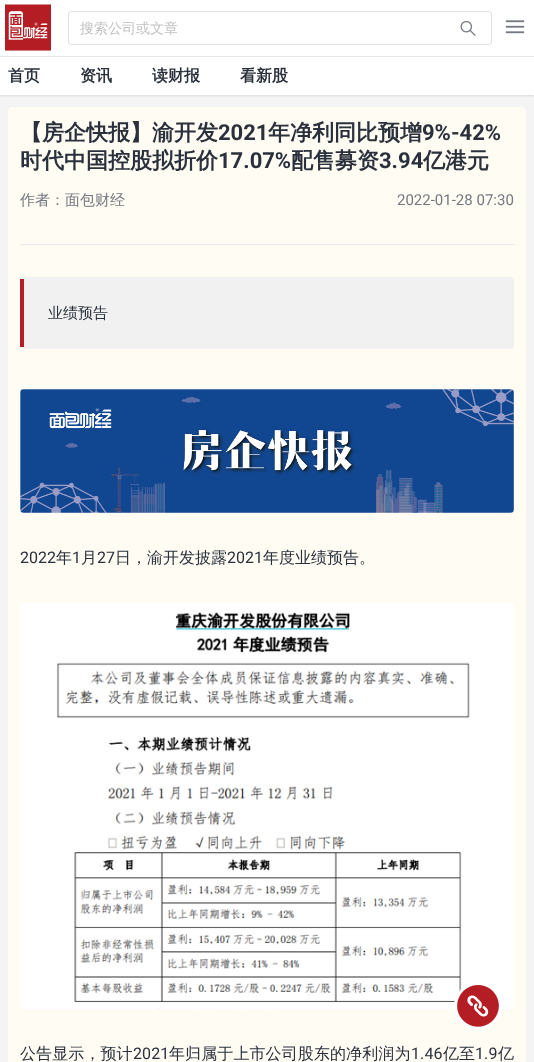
<svg xmlns="http://www.w3.org/2000/svg" width="534" height="1062">
<rect width="100%" height="100%" fill="#f4f4f4"/>
<rect y="1" width="534" height="95" fill="#0000001a" filter="blur(1px)"/>
<rect width="534" height="95" fill="#fff"/>
<image x="5" y="4" width="46" height="47" href="media/1.png"/>
<image x="460" y="20" width="16" height="16" href="media/2.png"/>
<rect x="68.5" y="11.5" width="423" height="33" rx="2.5" fill="none" stroke="#e0e0e6"/>
<text x="80" y="33" style="font-family:WenQuanYi Zen Hei;font-size:14px;font-weight:500;fill:#c2c2c2">搜索公司或文章</text>
<image x="505" y="20" width="20" height="14" href="media/3.png"/>
<rect y="56" width="534" height="1" fill="#e6e7e8"/>
<text x="8" y="81" style="font-family:WenQuanYi Zen Hei;font-size:16px;font-weight:bold;fill:#2a313d">首页</text>
<text x="80" y="81" style="font-family:WenQuanYi Zen Hei;font-size:16px;font-weight:bold;fill:#2a313d">资讯</text>
<text x="152" y="81" style="font-family:WenQuanYi Zen Hei;font-size:16px;font-weight:bold;fill:#2a313d">读财报</text>
<text x="240" y="81" style="font-family:WenQuanYi Zen Hei;font-size:16px;font-weight:bold;fill:#2a313d">看新股</text>
<path d="M12 107h510c2 0 4 2 4 4v951h-518v-951c0-2 2-4 4-4z" fill="#fffcf3"/>
<rect x="20" y="244" width="494" height="1" fill="#e6e7e8"/>
<text x="20" y="140" style="font-family:WenQuanYi Zen Hei;font-size:22px;font-weight:bold;fill:#2a313d">【房企快报】渝开发</text>
<text x="218" y="140" style="font-family:Roboto;font-size:22px;font-weight:bold;fill:#2a313d">2021</text>
<text x="268" y="140" style="font-family:WenQuanYi Zen Hei;font-size:22px;font-weight:bold;fill:#2a313d">年净利同比预增</text>
<text x="422" y="140" style="font-family:Roboto;font-size:22px;font-weight:bold;fill:#2a313d">9%-42%</text>
<text x="20" y="168" style="font-family:WenQuanYi Zen Hei;font-size:22px;font-weight:bold;fill:#2a313d">时代中国控股拟折价</text>
<text x="218" y="168" style="font-family:Roboto;font-size:22px;font-weight:bold;fill:#2a313d">17.07%</text>
<text x="291" y="168" style="font-family:WenQuanYi Zen Hei;font-size:22px;font-weight:bold;fill:#2a313d">配售募资</text>
<text x="379" y="168" style="font-family:Roboto;font-size:22px;font-weight:bold;fill:#2a313d">3.94</text>
<text x="423" y="168" style="font-family:WenQuanYi Zen Hei;font-size:22px;font-weight:bold;fill:#2a313d">亿港元</text>
<text x="20" y="205" style="font-family:WenQuanYi Zen Hei;font-size:15px;font-weight:500;fill:#747880">作者：面包财经</text>
<text x="397" y="205" style="font-family:Roboto;font-size:15px;fill:#747880">2022-01-28 07:30</text>
<rect x="20" y="277" width="494" height="72" rx="4" fill="#f1f1f1"/>
<rect x="20" y="279" width="4" height="68" fill="#b41d24"/>
<text x="48" y="318" style="font-family:WenQuanYi Zen Hei;font-size:15px;font-weight:500;fill:#2a313d">业绩预告</text>
<image x="20" y="389" width="494" height="124" href="media/4.png"/>
<text x="20" y="563" style="font-family:Roboto;font-size:16px;fill:#2a313d">2022</text>
<text x="56" y="563" style="font-family:WenQuanYi Zen Hei;font-size:16px;font-weight:500;fill:#2a313d">年</text>
<text x="72" y="563" style="font-family:Roboto;font-size:16px;fill:#2a313d">1</text>
<text x="81" y="563" style="font-family:WenQuanYi Zen Hei;font-size:16px;font-weight:500;fill:#2a313d">月</text>
<text x="97" y="563" style="font-family:Roboto;font-size:16px;fill:#2a313d">27</text>
<text x="115" y="563" style="font-family:WenQuanYi Zen Hei;font-size:16px;font-weight:500;fill:#2a313d">日，渝开发披露</text>
<text x="227" y="563" style="font-family:Roboto;font-size:16px;fill:#2a313d">2021</text>
<text x="263" y="563" style="font-family:WenQuanYi Zen Hei;font-size:16px;font-weight:500;fill:#2a313d">年度业绩预告。</text>
<image x="20" y="603" width="494" height="406" href="media/5.png"/>
<text x="20" y="1059" style="font-family:WenQuanYi Zen Hei;font-size:16px;font-weight:500;letter-spacing:0.1px;fill:#2a313d">公告显示，预计</text>
<text x="133" y="1059" style="font-family:Roboto;font-size:16px;letter-spacing:0.1px;fill:#2a313d">2021</text>
<text x="169" y="1059" style="font-family:WenQuanYi Zen Hei;font-size:16px;font-weight:500;letter-spacing:0.1px;fill:#2a313d">年归属于上市公司股东的净利润为</text>
<text x="411" y="1059" style="font-family:Roboto;font-size:16px;letter-spacing:0.1px;fill:#2a313d">1.46</text>
<text x="443" y="1059" style="font-family:WenQuanYi Zen Hei;font-size:16px;font-weight:500;letter-spacing:0.1px;fill:#2a313d">亿至</text>
<text x="475" y="1059" style="font-family:Roboto;font-size:16px;letter-spacing:0.1px;fill:#2a313d">1.9</text>
<text x="498" y="1059" style="font-family:WenQuanYi Zen Hei;font-size:16px;font-weight:500;letter-spacing:0.1px;fill:#2a313d">亿</text>
<circle cx="478" cy="1006" r="24" fill="#fff"/>
<image x="457" y="985" width="42" height="42" href="media/6.png"/>
</svg>
